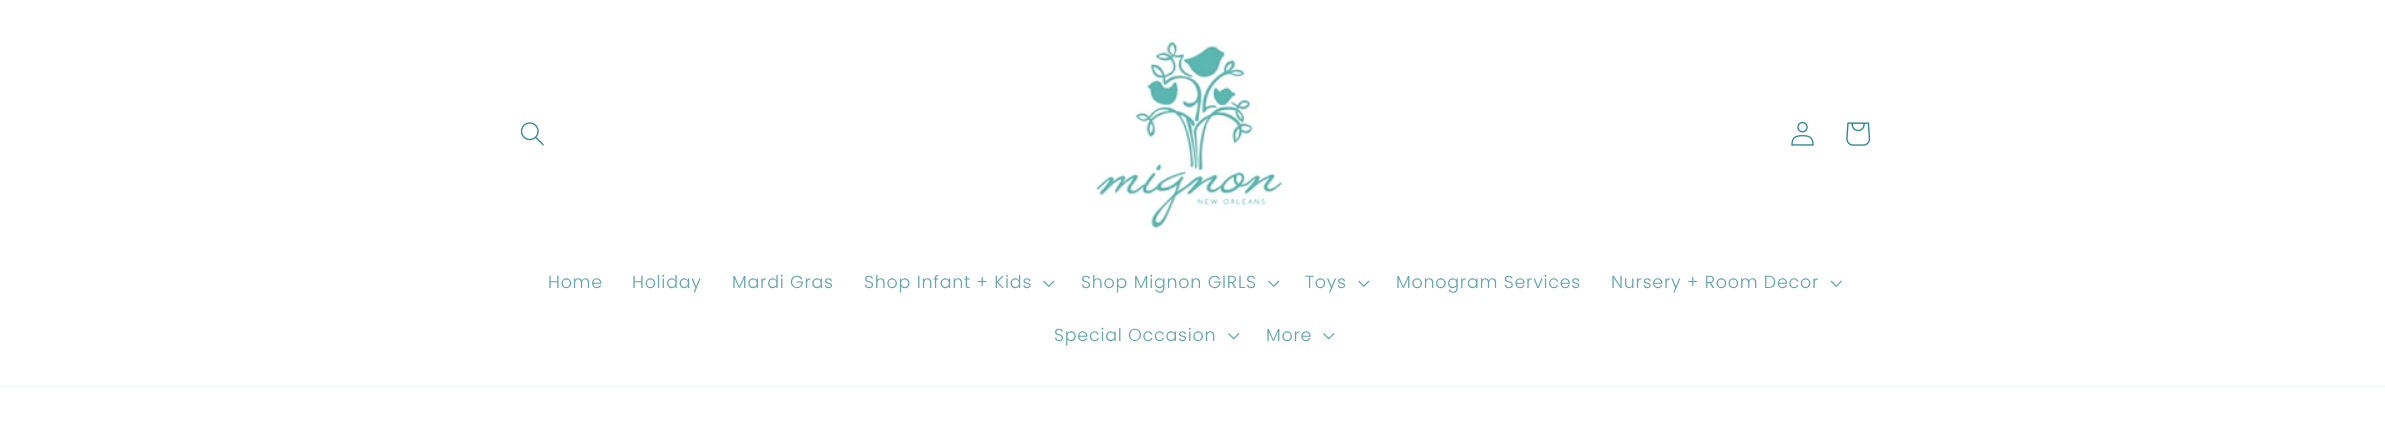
<svg xmlns="http://www.w3.org/2000/svg" width="2385" height="448">
<rect width="100%" height="100%" fill="#fff"/>
<rect y="386" width="2385" height="1" fill="#eef5f6"/>
<image x="520" y="122" width="24" height="24" href="media/1.png"/>
<image x="1095" y="37" width="191" height="196" href="media/2.png"/>
<image x="1791" y="121" width="23" height="25" href="media/3.png"/>
<image x="1846" y="122" width="25" height="24" href="media/4.png"/>
<text x="548" y="288" style="font-family:Poppins;font-size:17.5px;font-weight:300;letter-spacing:0.75px;fill:#62a5a9">Home</text>
<text x="632" y="288" style="font-family:Poppins;font-size:17.5px;font-weight:300;letter-spacing:0.75px;fill:#62a5a9">Holiday</text>
<text x="732" y="288" style="font-family:Poppins;font-size:17.5px;font-weight:300;letter-spacing:0.75px;fill:#62a5a9">Mardi Gras</text>
<text x="864" y="288" style="font-family:Poppins;font-size:17.5px;font-weight:300;letter-spacing:0.75px;fill:#62a5a9">Shop Infant + Kids</text>
<image x="1043" y="280" width="12" height="7" href="media/5.png"/>
<text x="1081" y="288" style="font-family:Poppins;font-size:17.5px;font-weight:300;letter-spacing:0.75px;fill:#62a5a9">Shop Mignon GIRLS</text>
<image x="1268" y="280" width="12" height="7" href="media/5.png"/>
<text x="1305" y="288" style="font-family:Poppins;font-size:17.5px;font-weight:300;letter-spacing:0.75px;fill:#62a5a9">Toys</text>
<image x="1358" y="280" width="12" height="7" href="media/5.png"/>
<text x="1396" y="288" style="font-family:Poppins;font-size:17.5px;font-weight:300;letter-spacing:0.75px;fill:#62a5a9">Monogram Services</text>
<text x="1611" y="288" style="font-family:Poppins;font-size:17.5px;font-weight:300;letter-spacing:0.75px;fill:#62a5a9">Nursery + Room Decor</text>
<image x="1830" y="280" width="12" height="7" href="media/6.png"/>
<text x="1054" y="341" style="font-family:Poppins;font-size:17.5px;font-weight:300;letter-spacing:0.75px;fill:#62a5a9">Special Occasion</text>
<image x="1228" y="333" width="12" height="7" href="media/7.png"/>
<text x="1266" y="341" style="font-family:Poppins;font-size:17.5px;font-weight:300;letter-spacing:0.75px;fill:#62a5a9">More</text>
<image x="1323" y="333" width="12" height="7" href="media/7.png"/>
</svg>
